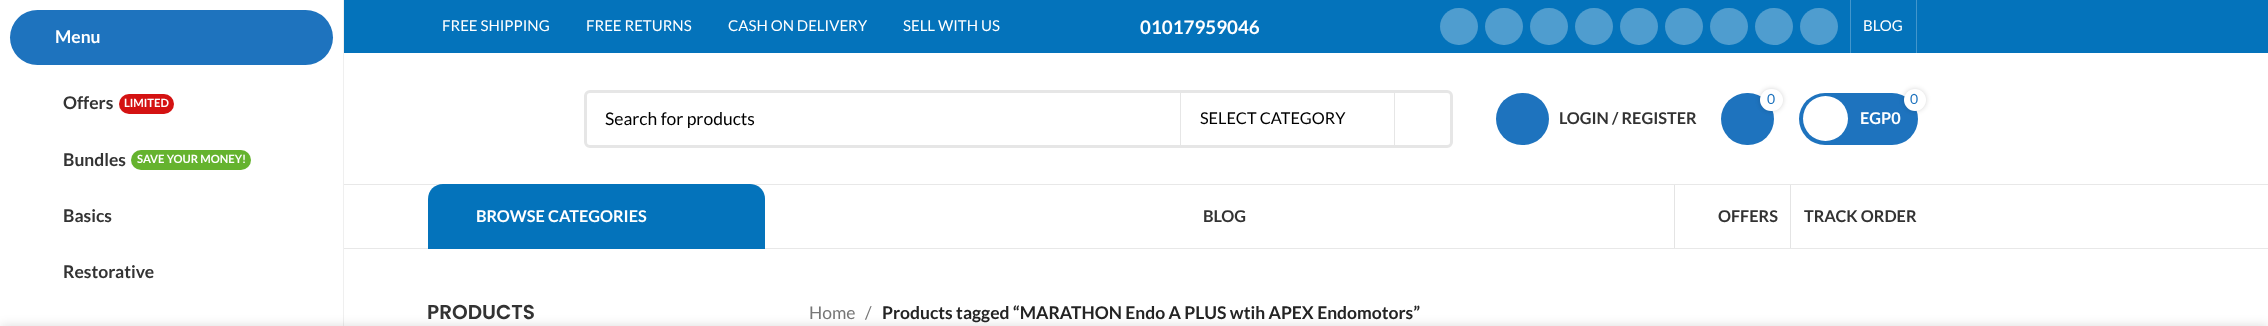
<svg xmlns="http://www.w3.org/2000/svg" width="2268" height="326">
<rect width="100%" height="100%" fill="#fff"/>
<rect x="343" width="1" height="326" fill="#efefef"/>
<rect x="10" y="10" width="323" height="55" rx="27.5" fill="#1e73be"/>
<text x="55" y="43" style="font-family:Lato;font-size:17.5px;font-weight:bold;fill:#fff">Menu</text>
<text x="63" y="109" style="font-family:Lato;font-size:17.5px;font-weight:bold;fill:#333">Offers</text>
<rect x="119" y="94" width="55" height="20" rx="10" fill="#d41212"/>
<text x="124" y="107" style="font-family:Lato;font-size:11.25px;font-weight:bold;fill:#fff">LIMITED</text>
<text x="63" y="166" style="font-family:Lato;font-size:17.5px;font-weight:bold;fill:#333">Bundles</text>
<rect x="131" y="150" width="120" height="20" rx="10" fill="#65b32e"/>
<text x="137" y="163" style="font-family:Lato;font-size:11.25px;font-weight:bold;fill:#fff">SAVE YOUR MONEY!</text>
<text x="63" y="222" style="font-family:Lato;font-size:17.5px;font-weight:bold;fill:#333">Basics</text>
<text x="63" y="278" style="font-family:Lato;font-size:17.5px;font-weight:bold;fill:#333">Restorative</text>
<rect x="344" width="1924" height="53" fill="#0473bb"/>
<text x="442" y="31" style="font-family:Lato;font-size:15px;fill:#fff">FREE SHIPPING</text>
<text x="586" y="31" style="font-family:Lato;font-size:15px;fill:#fff">FREE RETURNS</text>
<text x="728" y="31" style="font-family:Lato;font-size:15px;fill:#fff">CASH ON DELIVERY</text>
<text x="903" y="31" style="font-family:Lato;font-size:15px;fill:#fff">SELL WITH US</text>
<text x="1140" y="34" style="font-family:Lato;font-size:18.75px;font-weight:bold;fill:#fff">01017959046</text>
<rect x="1440" y="8" width="38" height="37" rx="18.5" fill="#4f9dcf"/>
<rect x="1485" y="8" width="38" height="37" rx="18.5" fill="#4f9dcf"/>
<rect x="1530" y="8" width="38" height="37" rx="18.5" fill="#4f9dcf"/>
<rect x="1575" y="8" width="38" height="37" rx="18.5" fill="#4f9dcf"/>
<rect x="1620" y="8" width="38" height="37" rx="18.5" fill="#4f9dcf"/>
<rect x="1665" y="8" width="38" height="37" rx="18.5" fill="#4f9dcf"/>
<rect x="1710" y="8" width="38" height="37" rx="18.5" fill="#4f9dcf"/>
<rect x="1755" y="8" width="38" height="37" rx="18.5" fill="#4f9dcf"/>
<rect x="1800" y="8" width="38" height="37" rx="18.5" fill="#4f9dcf"/>
<rect x="1850" width="1" height="53" fill="#4396cc"/>
<text x="1863" y="31" style="font-family:Lato;font-size:15px;fill:#fff">BLOG</text>
<rect x="1916" width="1" height="53" fill="#4396cc"/>
<rect x="344" y="184" width="1924" height="1" fill="#e8e8e8"/>
<rect x="585.5" y="91.5" width="866" height="55" rx="4.5" fill="none" stroke="#e6e6e6" stroke-width="3"/>
<text x="605" y="125" style="font-family:Lato;font-size:17.5px;fill:#000">Search for products</text>
<rect x="1394" y="93" width="1" height="52" fill="#e6e6e6"/>
<rect x="1180" y="93" width="1" height="52" fill="#e6e6e6"/>
<text x="1200" y="124" style="font-family:Lato;font-size:16.25px;fill:#000">SELECT CATEGORY</text>
<rect x="1496" y="93" width="53" height="52" rx="26" fill="#1e73be"/>
<text x="1559" y="124" style="font-family:Lato;font-size:16.25px;font-weight:bold;fill:#333">LOGIN / REGISTER</text>
<rect x="1721" y="93" width="53" height="52" rx="26" fill="#1e73be"/>
<rect x="1760" y="89" width="23" height="22" rx="11" fill="#0000002b" filter="blur(2.5px)"/>
<rect x="1760" y="89" width="23" height="22" rx="11" fill="#fff"/>
<text x="1767" y="104" style="font-family:Lato;font-size:14px;fill:#1e73be">0</text>
<rect x="1799" y="93" width="119" height="52" rx="26" fill="#1e73be"/>
<circle cx="1825.5" cy="118.5" r="22.5" fill="#fff"/>
<rect x="1904" y="89" width="22" height="22" rx="11" fill="#0000002b" filter="blur(2.5px)"/>
<circle cx="1915" cy="100" r="11" fill="#fff"/>
<text x="1910" y="104" style="font-family:Lato;font-size:14px;fill:#1e73be">0</text>
<text x="1860" y="124" style="font-family:Lato;font-size:16.25px;font-weight:bold;fill:#fff">EGP0</text>
<rect x="344" y="248" width="1924" height="1" fill="#e8e8e8"/>
<path d="M443 184h307c8.5 0 15 6.5 15 15v50h-337v-50c0-8.5 6.5-15 15-15z" fill="#0473bb"/>
<text x="476" y="222" style="font-family:Lato;font-size:16.25px;font-weight:bold;fill:#fff">BROWSE CATEGORIES</text>
<text x="1203" y="222" style="font-family:Lato;font-size:16.25px;font-weight:bold;fill:#333">BLOG</text>
<rect x="1674" y="185" width="1" height="63" fill="#e4e4e4"/>
<text x="1718" y="222" style="font-family:Lato;font-size:16.25px;font-weight:bold;fill:#333">OFFERS</text>
<rect x="1790" y="185" width="1" height="63" fill="#e4e4e4"/>
<text x="1804" y="222" style="font-family:Lato;font-size:16.25px;font-weight:bold;fill:#333">TRACK ORDER</text>
<text x="427" y="319" style="font-family:Poppins;font-size:20px;font-weight:600;fill:#333">PRODUCTS</text>
<text x="809" y="319" style="font-family:Lato;font-size:17.5px;fill:#767676">Home</text>
<text x="865" y="319" style="font-family:Lato;font-size:17.5px;fill:#767676">/</text>
<text x="882" y="319" style="font-family:Lato;font-size:17.5px;font-weight:bold;fill:#242424">Products tagged “MARATHON Endo A PLUS wtih APEX Endomotors”</text>
<rect y="326" width="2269" height="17" fill="#00000024" filter="blur(5.5px)"/>
</svg>
